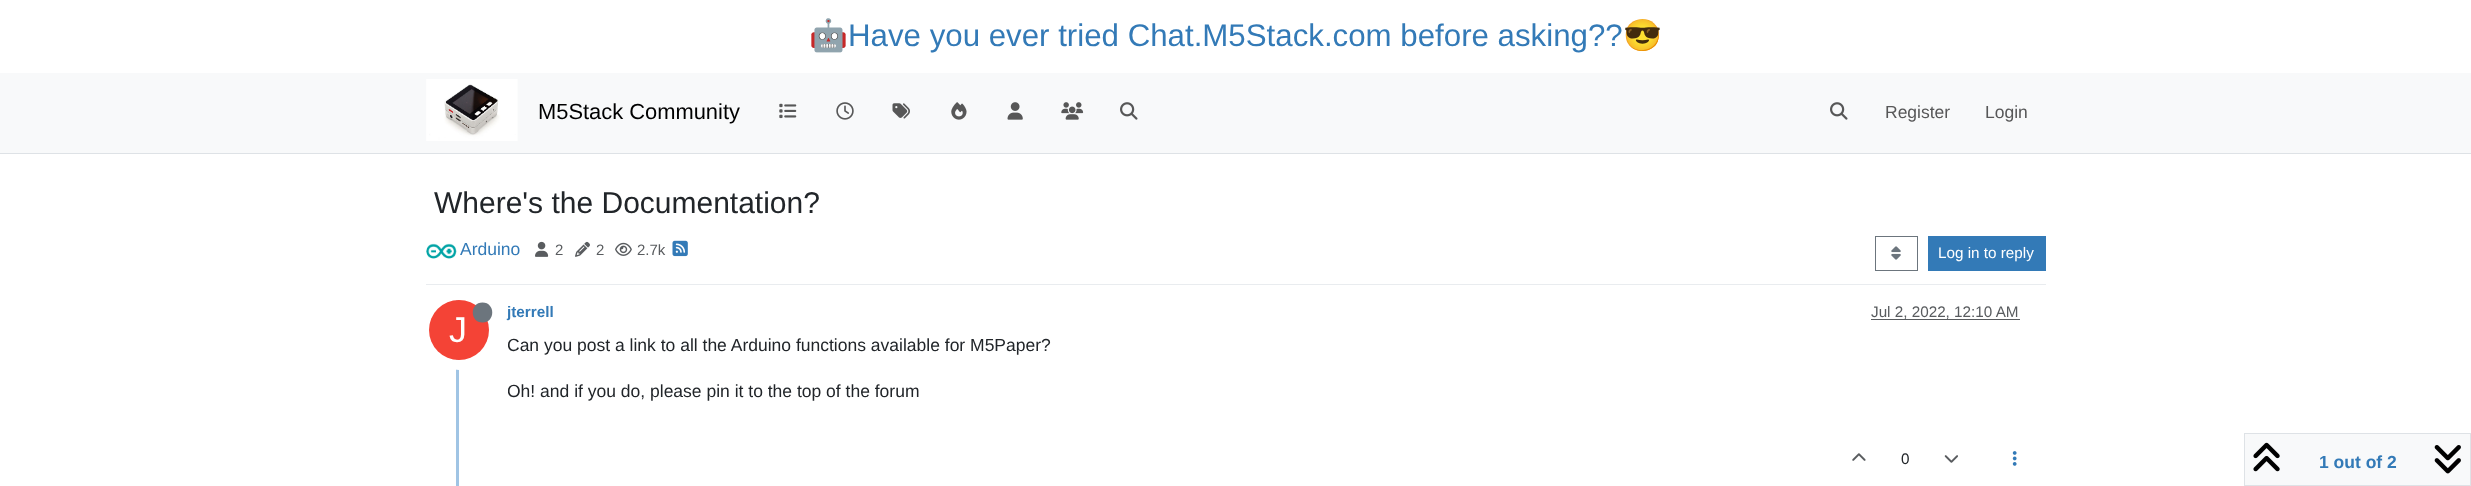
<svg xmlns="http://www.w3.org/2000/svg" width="2471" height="486">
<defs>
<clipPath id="clip1"><rect x="508" y="333" width="1538" height="93"/></clipPath>
</defs>
<rect width="100%" height="100%" fill="#fff"/>
<text x="809" y="46" style="font-family:Noto Color Emoji;font-size:31.25px;fill:#337ab7">🤖</text>
<text x="848" y="46" style="font-family:Liberation Sans;font-size:31.25px;fill:#337ab7">Have you ever tried Chat.M5Stack.com before asking??</text>
<text x="1623" y="46" style="font-family:Noto Color Emoji;font-size:31.25px;fill:#337ab7">😎</text>
<rect y="73" width="2471" height="80" fill="#f8f9fa"/>
<rect y="153" width="2471" height="1" fill="#dee2e6"/>
<image x="426" y="79" width="92" height="62" href="media/1.png"/>
<text x="538" y="119" style="font-family:Liberation Sans;font-size:21.9px;fill:#000">M5Stack Community</text>
<image x="779" y="103" width="18" height="16" href="media/2.png"/>
<image x="836" y="102" width="18" height="18" href="media/3.png"/>
<image x="892" y="103" width="18" height="16" href="media/4.png"/>
<image x="951" y="102" width="16" height="18" href="media/5.png"/>
<image x="1007" y="102" width="16" height="18" href="media/6.png"/>
<image x="1061" y="102" width="23" height="18" href="media/7.png"/>
<image x="1120" y="102" width="18" height="18" href="media/8.png"/>
<image x="1830" y="102" width="18" height="18" href="media/8.png"/>
<text x="1885" y="118" style="font-family:Liberation Sans;font-size:17.5px;fill:#575758">Register</text>
<text x="1985" y="118" style="font-family:Liberation Sans;font-size:17.5px;fill:#575758">Login</text>
<text x="434" y="213" style="font-family:Liberation Sans;font-size:30px;fill:#212529">Where's the Documentation?</text>
<rect x="426" y="284" width="1620" height="1" fill="#e9ecef"/>
<image x="426" y="243" width="31" height="16" href="media/9.png"/>
<text x="460" y="255" style="font-family:Liberation Sans;font-size:17.5px;fill:#337ab7">Arduino</text>
<image x="535" y="241" width="14" height="16" href="media/10.png"/>
<text x="555" y="255" style="font-family:Liberation Sans;font-size:15px;fill:#595c5f">2</text>
<image x="575" y="241" width="15" height="16" href="media/11.png"/>
<text x="596" y="255" style="font-family:Liberation Sans;font-size:15px;fill:#595c5f">2</text>
<image x="615" y="242" width="17" height="14" href="media/12.png"/>
<text x="637" y="255" style="font-family:Liberation Sans;font-size:15px;fill:#595c5f">2.7k</text>
<image x="672" y="240" width="16" height="17" href="media/13.png"/>
<rect x="1875.5" y="236.5" width="42" height="34" fill="none" stroke="#6c757d"/>
<image x="1891" y="246" width="10" height="14" href="media/14.png"/>
<rect x="1928" y="236" width="118" height="35" fill="#337ab7"/>
<text x="1938" y="258" style="font-family:Liberation Sans;font-size:15.25px;fill:#fff">Log in to reply</text>
<rect x="456" y="298" width="3" height="188" fill="#a0c4e4"/>
<text x="507" y="317" style="font-family:Liberation Sans;font-size:15.25px;font-weight:bold;fill:#337ab7">jterrell</text>
<text x="1871" y="317" style="font-family:Liberation Sans;font-size:15.25px;fill:#595c5f">Jul 2, 2022, 12:10 AM</text>
<rect x="1871" y="319" width="149" height="1" fill="#595c5f"/>
<circle cx="459" cy="330" r="35" fill="none" stroke="#fff" stroke-width="10"/>
<circle cx="459" cy="330" r="30" fill="#f44336"/>
<path d="M482.5 322.5c13 0 13-20 0-20c-13 0-13 20 0 20z" fill="#6c757d"/>
<text x="449" y="342" style="font-family:Liberation Sans;font-size:36px;fill:#fff">J</text>
<g clip-path="url(#clip1)">
<text x="507" y="351" style="font-family:Liberation Sans;font-size:17.5px;fill:#212529">Can you post a link to all the Arduino functions available for M5Paper?</text>
<text x="507" y="397" style="font-family:Liberation Sans;font-size:17.5px;fill:#212529">Oh! and if you do, please pin it to the top of the forum</text>
</g>
<image x="1852" y="453" width="14" height="8" href="media/15.png"/>
<text x="1901" y="464" style="font-family:Liberation Sans;font-size:15.25px;fill:#212529">0</text>
<image x="1944" y="455" width="14" height="8" href="media/16.png"/>
<image x="2012" y="451" width="5" height="15" href="media/17.png"/>
<rect x="2244.5" y="433.5" width="226" height="52" fill="#f8f9fa" stroke="#dee2e6"/>
<image x="2253" y="442" width="27" height="30" href="media/18.png"/>
<text x="2319" y="468" style="font-family:Liberation Sans;font-size:17.5px;font-weight:bold;fill:#337ab7">1 out of 2</text>
<image x="2434" y="445" width="27" height="29" href="media/19.png"/>
</svg>
